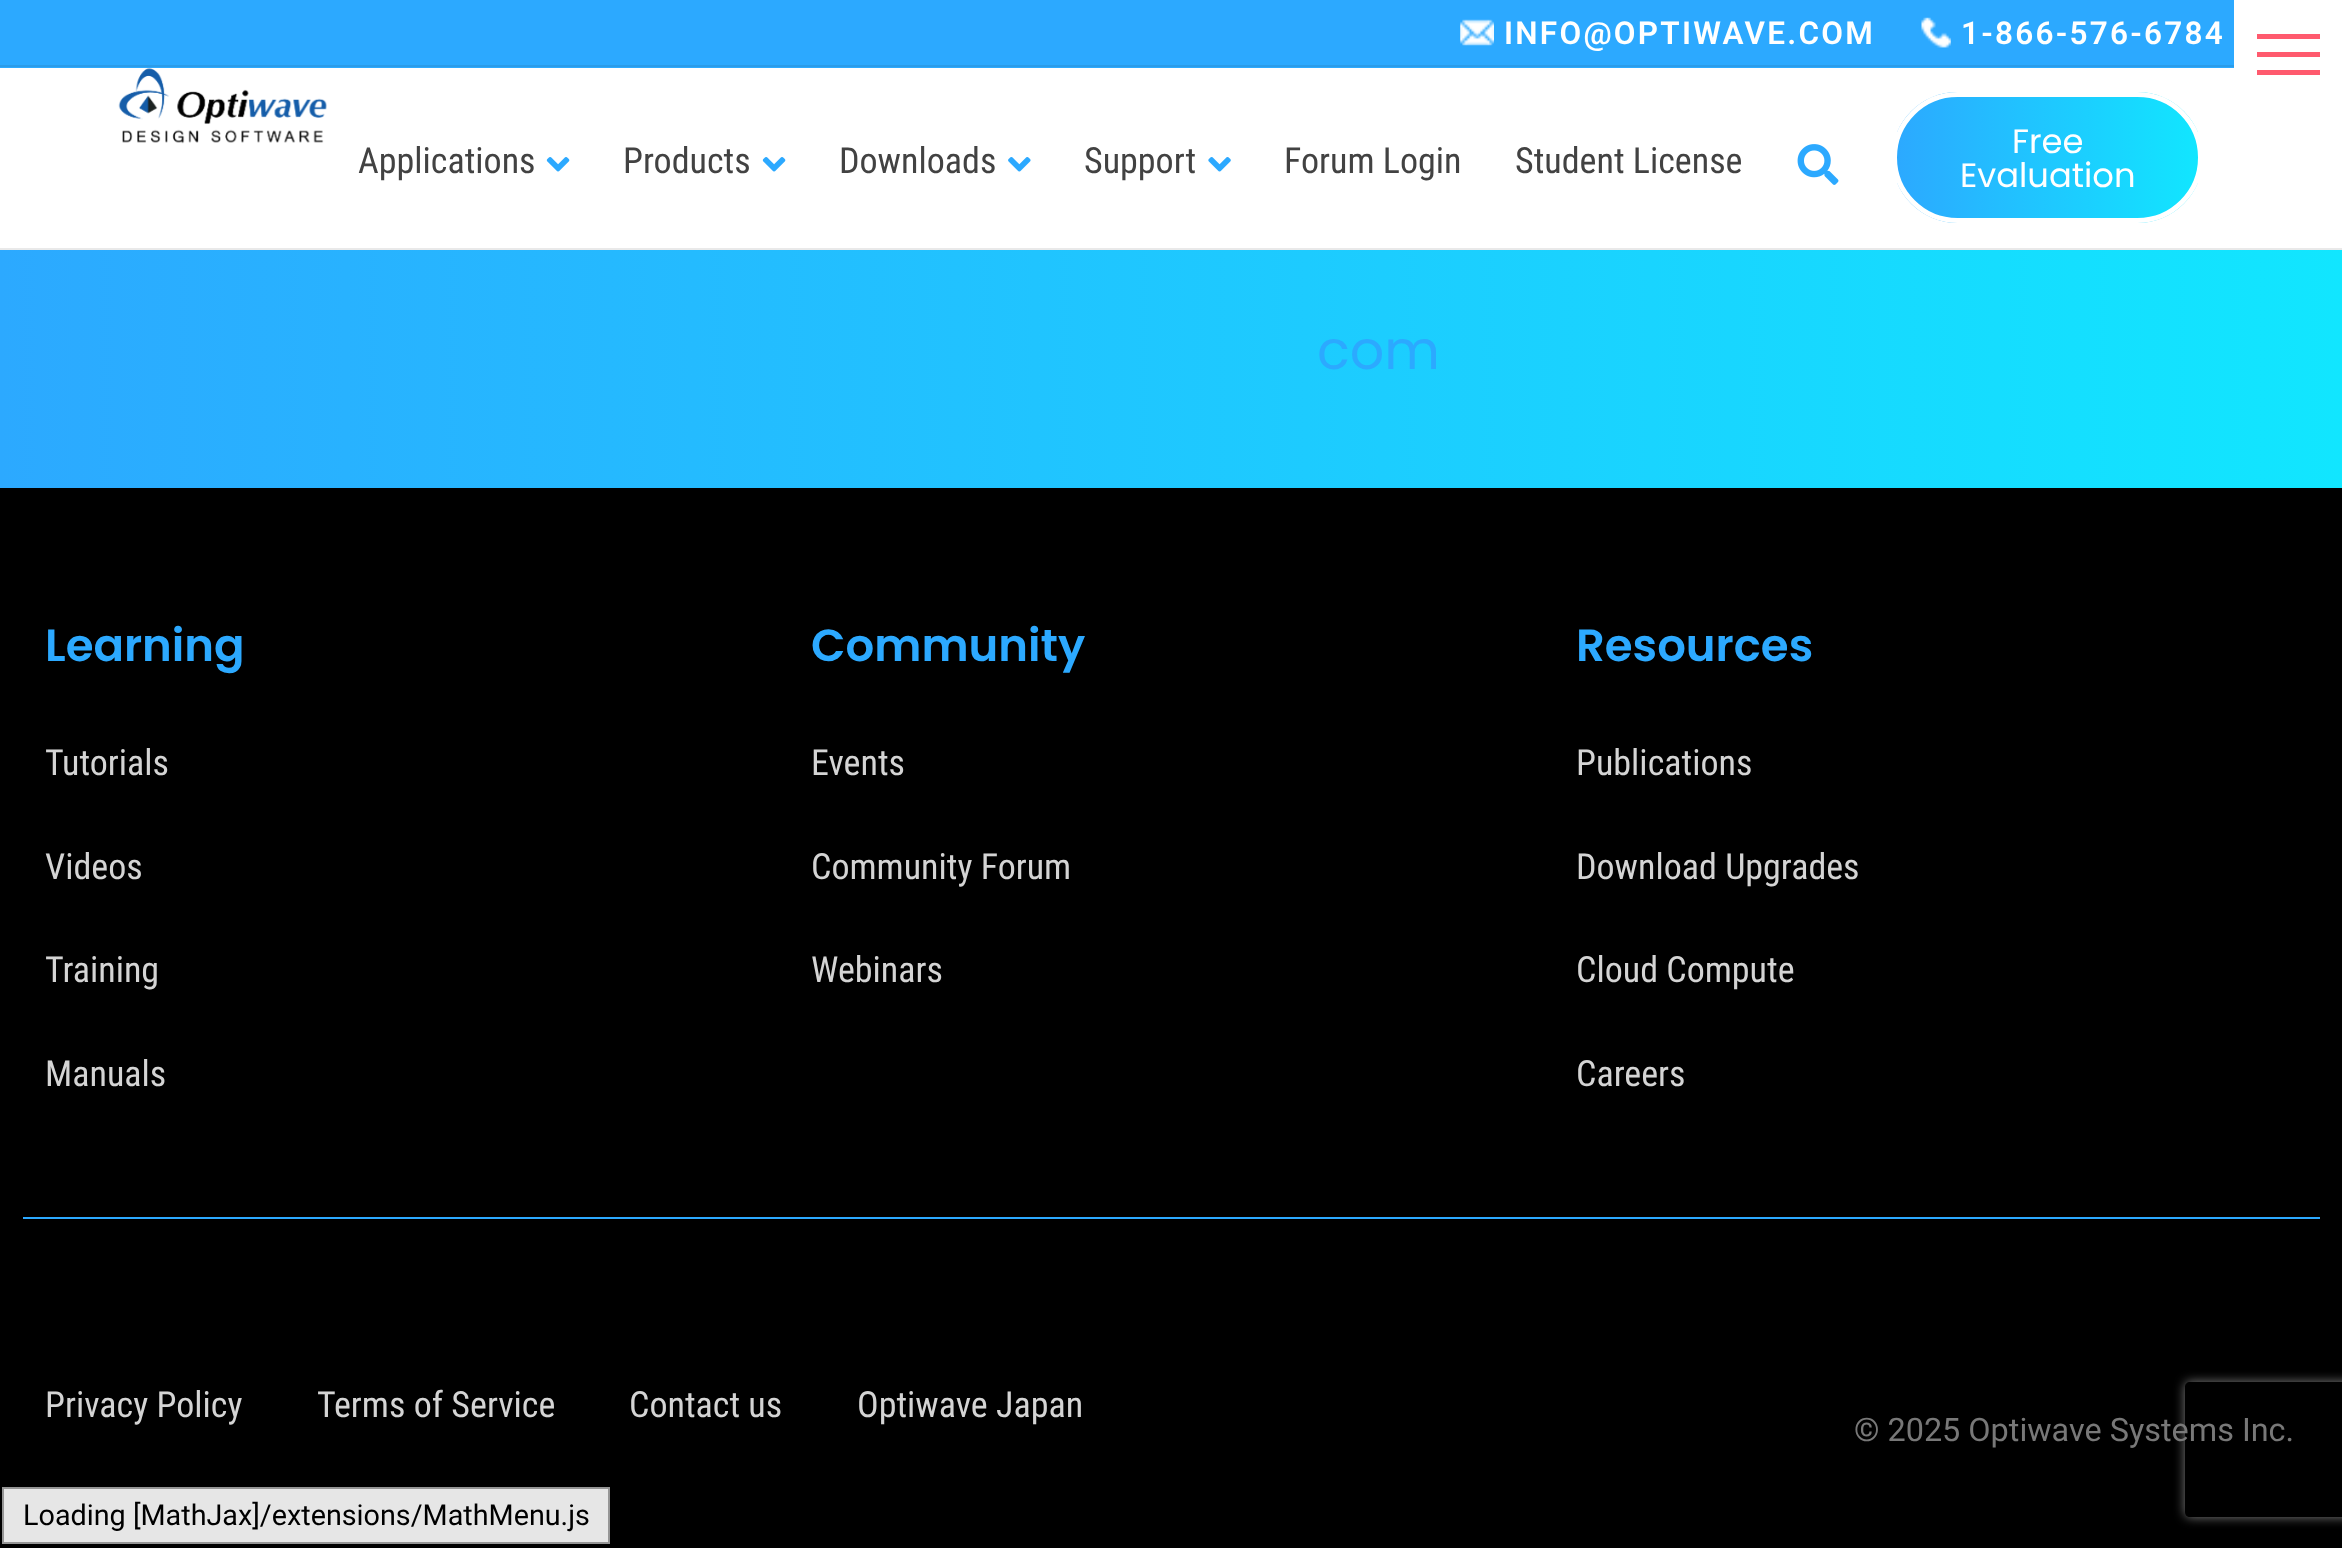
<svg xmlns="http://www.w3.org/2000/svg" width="2342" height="1548">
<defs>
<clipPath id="clip1"><rect x="1892" y="92" width="311" height="131" rx="65.5"/></clipPath>
<linearGradient id="g1" gradientUnits="userSpaceOnUse" x1="1897" y1="158" x2="2198" y2="158"><stop offset="0" stop-color="#2ca9ff"/><stop offset="1" stop-color="#11e6ff"/></linearGradient>
<linearGradient id="g2" gradientUnits="userSpaceOnUse" x1="0" y1="209" x2="2342" y2="209"><stop offset="0" stop-color="#2ca9ff"/><stop offset="1" stop-color="#11e6ff"/></linearGradient>
<clipPath id="clip2"><path d="M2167 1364h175v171h-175zm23 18h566c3 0 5 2 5 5v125c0 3-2 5-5 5h-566c-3 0-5-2-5-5v-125c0-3 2-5 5-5z" clip-rule="evenodd"/></clipPath>
</defs>
<rect width="100%" height="100%" fill="#fff"/>
<rect width="2234" height="68" fill="#2ca9ff"/>
<rect y="65" width="2234" height="2" fill="#2b9ce9"/>
<image x="1460" y="19" width="34" height="27" href="media/1.png"/>
<text x="1504" y="44" style="font-family:Roboto;font-size:31.5px;font-weight:600;letter-spacing:2.25px;fill:#fff">INFO@OPTIWAVE.COM</text>
<image x="1921" y="17" width="30" height="31" href="media/2.png"/>
<text x="1961" y="44" style="font-family:Roboto;font-size:31.5px;font-weight:600;letter-spacing:2.25px;fill:#fff">1-866-576-6784</text>
<rect y="248" width="2342" height="2" fill="#e9e9e9"/>
<image x="118" y="68" width="209" height="76" href="media/3.png"/>
<text x="358" y="173" style="font-family:Roboto Condensed;font-size:36px;fill:#424242">Applications</text>
<image x="546" y="157" width="24" height="15" href="media/4.png"/>
<text x="623" y="173" style="font-family:Roboto Condensed;font-size:36px;fill:#424242">Products</text>
<image x="762" y="157" width="24" height="15" href="media/4.png"/>
<text x="839" y="173" style="font-family:Roboto Condensed;font-size:36px;fill:#424242">Downloads</text>
<image x="1008" y="157" width="23" height="15" href="media/5.png"/>
<text x="1084" y="173" style="font-family:Roboto Condensed;font-size:36px;fill:#424242">Support</text>
<image x="1208" y="157" width="23" height="15" href="media/6.png"/>
<text x="1284" y="173" style="font-family:Roboto Condensed;font-size:36px;fill:#424242">Forum Login</text>
<text x="1515" y="173" style="font-family:Roboto Condensed;font-size:36px;fill:#424242">Student License</text>
<image x="1797" y="144" width="42" height="41" href="media/7.png"/>
<g clip-path="url(#clip1)">
<rect x="1897" y="92" width="301" height="131" fill="url(#g1)"/>
</g>
<rect x="1894.5" y="94.5" width="306" height="126" rx="63" fill="none" stroke="#fff" stroke-width="5"/>
<text x="2012" y="153" style="font-family:Poppins;font-size:33.75px;fill:#fff">Free</text>
<text x="1960" y="187" style="font-family:Poppins;font-size:33.75px;fill:#fff">Evaluation</text>
<rect x="2257" y="52" width="63" height="5" fill="#ff5a6e"/>
<rect x="2257" y="34" width="63" height="5" fill="#ff5a6e"/>
<rect x="2257" y="70" width="63" height="5" fill="#ff5a6e"/>
<rect y="250" width="2342" height="238" fill="url(#g2)"/>
<text x="1317" y="369" style="font-family:Poppins;font-size:54px;fill:#2ca9ff">com</text>
<rect y="488" width="2342" height="1060" fill="#000"/>
<text x="45" y="661" style="font-family:Poppins;font-size:45px;font-weight:600;fill:#2ca9ff">Learning</text>
<text x="45" y="775" style="font-family:Roboto Condensed;font-size:36px;fill:#d4d4d4">Tutorials</text>
<text x="45" y="879" style="font-family:Roboto Condensed;font-size:36px;fill:#d4d4d4">Videos</text>
<text x="45" y="982" style="font-family:Roboto Condensed;font-size:36px;fill:#d4d4d4">Training</text>
<text x="45" y="1086" style="font-family:Roboto Condensed;font-size:36px;fill:#d4d4d4">Manuals</text>
<text x="811" y="661" style="font-family:Poppins;font-size:45px;font-weight:600;fill:#2ca9ff">Community</text>
<text x="811" y="775" style="font-family:Roboto Condensed;font-size:36px;fill:#d4d4d4">Events</text>
<text x="811" y="879" style="font-family:Roboto Condensed;font-size:36px;fill:#d4d4d4">Community Forum</text>
<text x="811" y="982" style="font-family:Roboto Condensed;font-size:36px;fill:#d4d4d4">Webinars</text>
<text x="1576" y="661" style="font-family:Poppins;font-size:45px;font-weight:600;fill:#2ca9ff">Resources</text>
<text x="1576" y="775" style="font-family:Roboto Condensed;font-size:36px;fill:#d4d4d4">Publications</text>
<text x="1576" y="879" style="font-family:Roboto Condensed;font-size:36px;fill:#d4d4d4">Download Upgrades</text>
<text x="1576" y="982" style="font-family:Roboto Condensed;font-size:36px;fill:#d4d4d4">Cloud Compute</text>
<text x="1576" y="1086" style="font-family:Roboto Condensed;font-size:36px;fill:#d4d4d4">Careers</text>
<rect x="23" y="1217" width="2297" height="2" fill="#2ca9ff"/>
<text x="45" y="1417" style="font-family:Roboto Condensed;font-size:36px;fill:#d4d4d4">Privacy Policy</text>
<text x="317" y="1417" style="font-family:Roboto Condensed;font-size:36px;fill:#d4d4d4">Terms of Service</text>
<text x="629" y="1417" style="font-family:Roboto Condensed;font-size:36px;fill:#d4d4d4">Contact us</text>
<text x="857" y="1417" style="font-family:Roboto Condensed;font-size:36px;fill:#d4d4d4">Optiwave Japan</text>
<text x="1854" y="1441" style="font-family:Roboto;font-size:32.4px;fill:#787878">© 2025 Optiwave Systems Inc.</text>
<rect x="3" y="1488" width="606" height="55" fill="#e6e6e6" stroke="#959595" stroke-width="2"/>
<text x="23" y="1525" style="font-family:Roboto;font-size:28.75px;fill:#000">Loading [MathJax]/extensions/MathMenu.js</text>
<g clip-path="url(#clip2)">
<rect x="2185" y="1382" width="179" height="135" rx="5" fill="#808080" filter="blur(5.5px)"/>
</g>
</svg>
